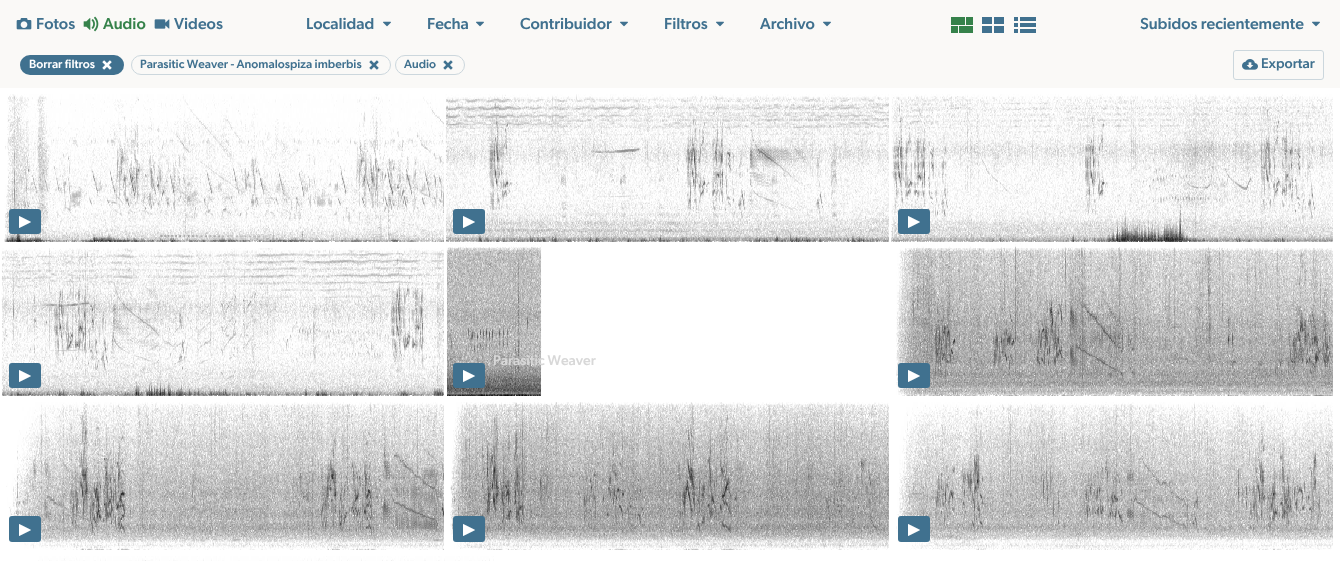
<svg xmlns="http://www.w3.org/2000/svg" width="1340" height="561">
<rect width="100%" height="100%" fill="#fff"/>
<rect width="1340" height="88" fill="#faf9f7"/>
<image x="16" y="18" width="16" height="12" href="media/1.png"/>
<text x="36" y="29" style="font-family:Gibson;font-size:16px;font-weight:500;fill:#40718f">Fotos</text>
<image x="83" y="16" width="16" height="16" href="media/2.png"/>
<text x="103" y="29" style="font-family:Gibson;font-size:16px;font-weight:500;fill:#36824b">Audio</text>
<image x="154" y="19" width="16" height="10" href="media/3.png"/>
<text x="174" y="29" style="font-family:Gibson;font-size:16px;font-weight:500;fill:#40718f">Videos</text>
<text x="306" y="29" style="font-family:Gibson;font-size:16px;font-weight:500;fill:#40718f">Localidad</text>
<image x="383" y="21" width="8" height="6" href="media/4.png"/>
<text x="427" y="29" style="font-family:Gibson;font-size:16px;font-weight:500;fill:#40718f">Fecha</text>
<image x="476" y="21" width="8" height="6" href="media/4.png"/>
<text x="520" y="29" style="font-family:Gibson;font-size:16px;font-weight:500;fill:#40718f">Contribuidor</text>
<image x="620" y="21" width="8" height="6" href="media/4.png"/>
<text x="664" y="29" style="font-family:Gibson;font-size:16px;font-weight:500;fill:#40718f">Filtros</text>
<image x="716" y="21" width="8" height="6" href="media/4.png"/>
<text x="760" y="29" style="font-family:Gibson;font-size:16px;font-weight:500;fill:#40718f">Archivo</text>
<image x="823" y="21" width="8" height="6" href="media/4.png"/>
<image x="951" y="17" width="22" height="16" href="media/5.png"/>
<image x="982" y="17" width="22" height="16" href="media/6.png"/>
<image x="1014" y="17" width="22" height="16" href="media/7.png"/>
<text x="1140" y="29" style="font-family:Gibson;font-size:16px;font-weight:500;fill:#40718f">Subidos recientemente</text>
<image x="1312" y="21" width="8" height="6" href="media/4.png"/>
<rect x="20" y="55" width="104" height="20" rx="10" fill="#40718f"/>
<text x="29" y="68" style="font-family:Gibson;font-size:12px;font-weight:500;fill:#fff">Borrar filtros</text>
<image x="102" y="60" width="10" height="10" href="media/8.png"/>
<rect x="131.5" y="55.5" width="259" height="19" rx="9.5" fill="none" stroke="#ccd7dd"/>
<text x="140" y="68" style="font-family:Gibson;font-size:12px;font-weight:500;fill:#40718f">Parasitic Weaver - Anomalospiza imberbis</text>
<image x="369" y="60" width="10" height="10" href="media/9.png"/>
<rect x="395.5" y="55.5" width="69" height="19" rx="9.5" fill="none" stroke="#ccd7dd"/>
<text x="404" y="68" style="font-family:Gibson;font-size:12px;font-weight:500;fill:#40718f">Audio</text>
<image x="443" y="60" width="10" height="10" href="media/9.png"/>
<rect x="1233.5" y="50.5" width="90" height="29" rx="2.5" fill="none" stroke="#ccd7dd"/>
<image x="1242" y="59" width="16" height="11" href="media/10.png"/>
<text x="1261" y="68" style="font-family:Gibson;font-size:14px;font-weight:500;fill:#40718f">Exportar</text>
<image x="4" y="94" width="440" height="148" href="media/11.png"/>
<rect x="9" y="209" width="32" height="25" rx="3" fill="#40718f"/>
<image x="19" y="216" width="12" height="12" href="media/12.png"/>
<image x="445" y="94" width="444" height="148" href="media/13.png"/>
<rect x="453" y="209" width="32" height="25" rx="3" fill="#40718f"/>
<image x="463" y="216" width="12" height="12" href="media/12.png"/>
<image x="891" y="94" width="442" height="148" href="media/14.png"/>
<rect x="898" y="209" width="32" height="25" rx="3" fill="#40718f"/>
<image x="908" y="216" width="12" height="12" href="media/12.png"/>
<image x="1" y="248" width="443" height="148" href="media/15.png"/>
<rect x="9" y="363" width="32" height="25" rx="3" fill="#40718f"/>
<image x="19" y="370" width="12" height="12" href="media/12.png"/>
<image x="446" y="243" width="96" height="153" href="media/16.png"/>
<text x="493" y="365" style="font-family:Gibson;font-size:14px;font-weight:500;fill:#d8d8d8">Parasitic Weaver</text>
<rect x="453" y="363" width="32" height="25" rx="3" fill="#40718f"/>
<image x="463" y="370" width="12" height="12" href="media/12.png"/>
<image x="896" y="243" width="437" height="153" href="media/17.png"/>
<rect x="898" y="363" width="32" height="25" rx="3" fill="#40718f"/>
<image x="908" y="370" width="12" height="12" href="media/12.png"/>
<image x="6" y="402" width="438" height="148" href="media/18.png"/>
<rect x="9" y="516" width="32" height="26" rx="3" fill="#40718f"/>
<image x="19" y="524" width="12" height="12" href="media/12.png"/>
<image x="450" y="402" width="439" height="148" href="media/19.png"/>
<rect x="453" y="516" width="32" height="26" rx="3" fill="#40718f"/>
<image x="463" y="524" width="12" height="12" href="media/12.png"/>
<image x="896" y="402" width="437" height="148" href="media/20.png"/>
<rect x="898" y="516" width="32" height="26" rx="3" fill="#40718f"/>
<image x="908" y="524" width="12" height="12" href="media/12.png"/>
<image x="38" y="556" width="456" height="5" href="media/21.png"/>
</svg>
